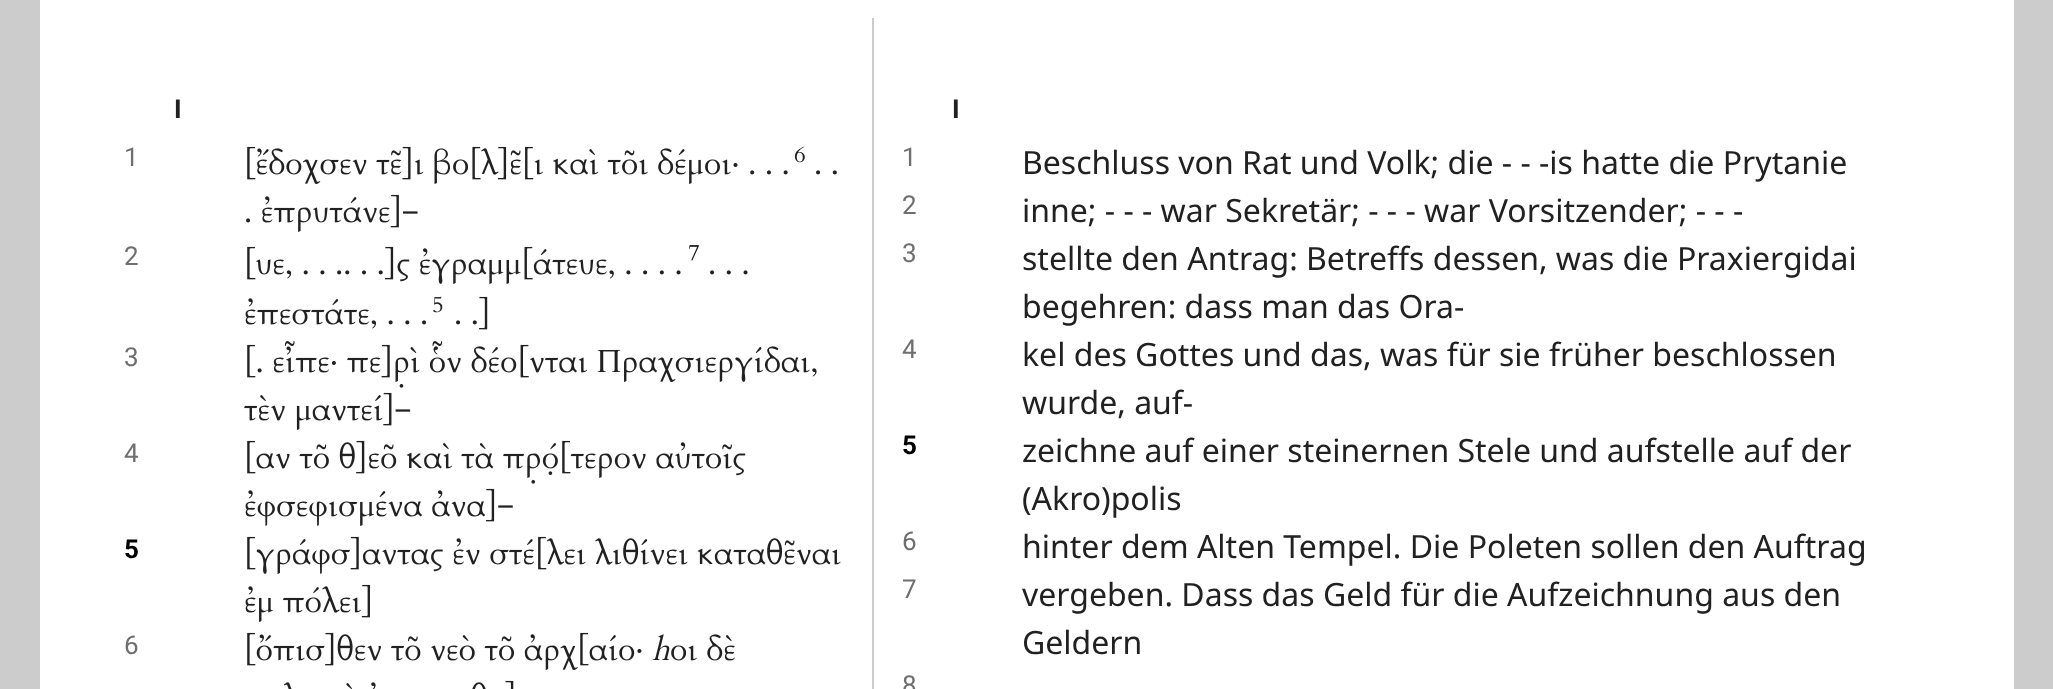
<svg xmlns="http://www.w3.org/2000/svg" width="2053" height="689">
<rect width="100%" height="100%" fill="#ccc"/>
<rect x="40" width="1974" height="689" fill="#fff"/>
<text x="174" y="118" style="font-family:Roboto;font-size:26px;font-weight:bold;letter-spacing:-1px;fill:#212121">I</text>
<text x="124" y="166" style="font-family:Roboto;font-size:26px;letter-spacing:-1px;fill:#6f6f6f">1</text>
<image x="247" y="146" width="541" height="38" href="media/1.png"/>
<image x="794" y="146" width="11" height="17" href="media/2.png"/>
<image x="816" y="170" width="21" height="5" href="media/3.png"/>
<image x="246" y="194" width="172" height="38" href="media/4.png"/>
<text x="124" y="265" style="font-family:Roboto;font-size:26px;letter-spacing:-1px;fill:#6f6f6f">2</text>
<image x="247" y="246" width="434" height="38" href="media/5.png"/>
<image x="689" y="245" width="10" height="16" href="media/6.png"/>
<image x="710" y="270" width="38" height="5" href="media/7.png"/>
<image x="245" y="298" width="182" height="31" href="media/8.png"/>
<image x="433" y="296" width="10" height="17" href="media/9.png"/>
<image x="456" y="296" width="32" height="34" href="media/10.png"/>
<text x="124" y="366" style="font-family:Roboto;font-size:26px;letter-spacing:-1px;fill:#6f6f6f">3</text>
<image x="247" y="341" width="570" height="47" href="media/11.png"/>
<image x="244" y="392" width="167" height="38" href="media/12.png"/>
<text x="124" y="462" style="font-family:Roboto;font-size:26px;letter-spacing:-1px;fill:#6f6f6f">4</text>
<image x="247" y="440" width="499" height="44" href="media/13.png"/>
<image x="245" y="488" width="268" height="38" href="media/14.png"/>
<text x="124" y="558" style="font-family:Roboto;font-size:26px;font-weight:bold;letter-spacing:-1px;fill:#000">5</text>
<image x="247" y="536" width="594" height="38" href="media/15.png"/>
<image x="245" y="584" width="125" height="38" href="media/16.png"/>
<text x="124" y="654" style="font-family:Roboto;font-size:26px;letter-spacing:-1px;fill:#6f6f6f">6</text>
<image x="247" y="632" width="395" height="38" href="media/17.png"/>
<image x="652" y="634" width="18" height="26" href="media/18.png"/>
<image x="671" y="634" width="64" height="27" href="media/19.png"/>
<image x="283" y="680" width="231" height="9" href="media/20.png"/>
<rect x="872" y="18" width="2" height="671" fill="#ccc"/>
<text x="952" y="118" style="font-family:Roboto;font-size:26px;font-weight:bold;letter-spacing:-1px;fill:#212121">I</text>
<text x="902" y="166" style="font-family:Roboto;font-size:26px;letter-spacing:-1px;fill:#6f6f6f">1</text>
<text x="1022" y="174" style="font-family:Noto Sans;font-size:32px;fill:#212121">Beschluss von Rat und Volk; die - - -is hatte die Prytanie</text>
<text x="902" y="214" style="font-family:Roboto;font-size:26px;letter-spacing:-1px;fill:#6f6f6f">2</text>
<text x="1022" y="222" style="font-family:Noto Sans;font-size:32px;fill:#212121">inne; - - - war Sekretär; - - - war Vorsitzender; - - -</text>
<text x="902" y="262" style="font-family:Roboto;font-size:26px;letter-spacing:-1px;fill:#6f6f6f">3</text>
<text x="1022" y="270" style="font-family:Noto Sans;font-size:32px;fill:#212121">stellte den Antrag: Betreffs dessen, was die Praxiergidai</text>
<text x="1022" y="318" style="font-family:Noto Sans;font-size:32px;fill:#212121">begehren: dass man das Ora-</text>
<text x="902" y="358" style="font-family:Roboto;font-size:26px;letter-spacing:-1px;fill:#6f6f6f">4</text>
<text x="1022" y="366" style="font-family:Noto Sans;font-size:32px;fill:#212121">kel des Gottes und das, was für sie früher beschlossen</text>
<text x="1022" y="414" style="font-family:Noto Sans;font-size:32px;fill:#212121">wurde, auf-</text>
<text x="902" y="454" style="font-family:Roboto;font-size:26px;font-weight:bold;letter-spacing:-1px;fill:#000">5</text>
<text x="1022" y="462" style="font-family:Noto Sans;font-size:32px;fill:#212121">zeichne auf einer steinernen Stele und aufstelle auf der</text>
<text x="1022" y="510" style="font-family:Noto Sans;font-size:32px;fill:#212121">(Akro)polis</text>
<text x="902" y="550" style="font-family:Roboto;font-size:26px;letter-spacing:-1px;fill:#6f6f6f">6</text>
<text x="1022" y="558" style="font-family:Noto Sans;font-size:32px;fill:#212121">hinter dem Alten Tempel. Die Poleten sollen den Auftrag</text>
<text x="902" y="598" style="font-family:Roboto;font-size:26px;letter-spacing:-1px;fill:#6f6f6f">7</text>
<text x="1022" y="606" style="font-family:Noto Sans;font-size:32px;fill:#212121">vergeben. Dass das Geld für die Aufzeichnung aus den</text>
<text x="1022" y="654" style="font-family:Noto Sans;font-size:32px;fill:#212121">Geldern</text>
<text x="902" y="694" style="font-family:Roboto;font-size:26px;letter-spacing:-1px;fill:#6f6f6f">8</text>
</svg>
